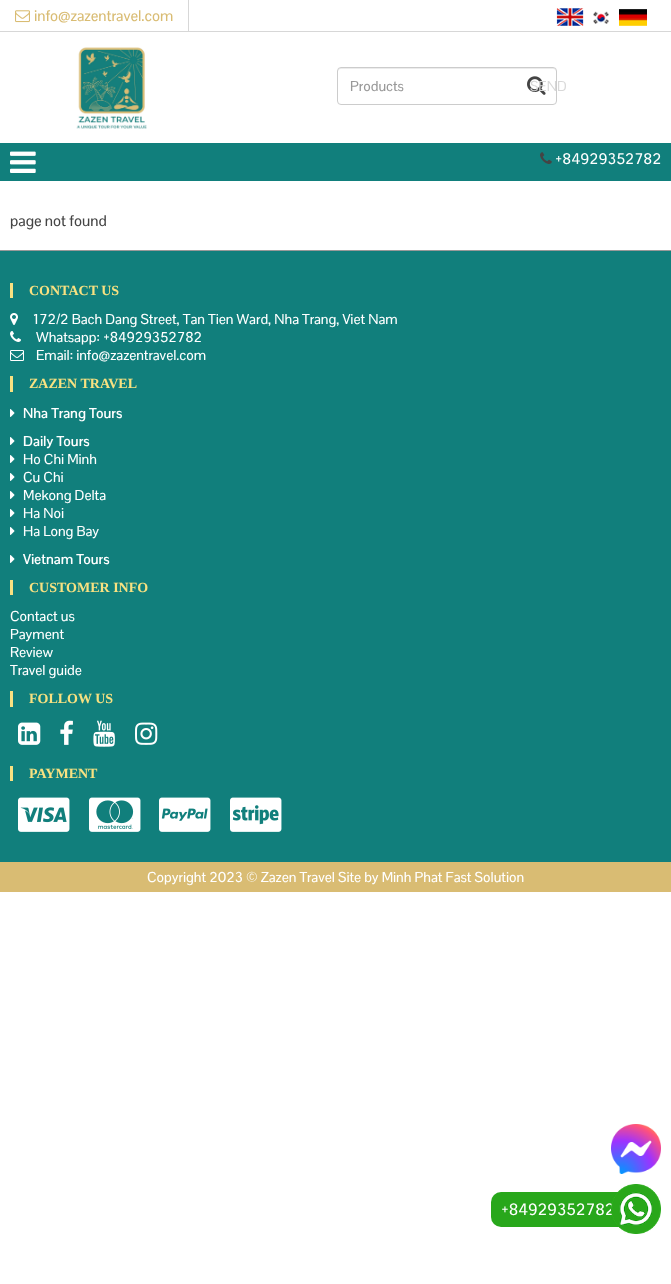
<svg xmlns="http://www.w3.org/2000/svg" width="671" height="1284">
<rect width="100%" height="100%" fill="#fff"/>
<rect y="31" width="671" height="1" fill="#d7d7d7"/>
<rect x="188" width="1" height="31" fill="#d7d7d7"/>
<image x="15" y="10" width="15" height="13" href="media/1.png"/>
<text x="34" y="21" style="font-family:Pontano Sans;font-size:15px;font-weight:500;fill:#d9bc73">info@zazentravel.com</text>
<image x="556" y="8" width="28" height="18" href="media/2.png"/>
<image x="593" y="11" width="16" height="13" href="media/3.png"/>
<image x="619" y="9" width="28" height="17" href="media/4.png"/>
<image x="76" y="47" width="71" height="82" href="media/5.png"/>
<path d="M341 69h212c2 0 3 1 3 3v-1c0-2-1-3-3-3h-212c-2 0-3 1-3 3v1c0-2 1-3 3-3z" fill="#ececec"/>
<rect x="337.5" y="67.5" width="219" height="37" rx="3.5" fill="none" stroke="#ccc"/>
<text x="350" y="91" style="font-family:Pontano Sans;font-size:14px;font-weight:500;fill:#999">Products</text>
<image x="527" y="76" width="19" height="19" href="media/6.png"/>
<text x="530" y="91" style="font-family:Pontano Sans;font-size:14px;fill:#d8d8d8">SEND</text>
<rect y="143" width="671" height="38" fill="#117f7c"/>
<image x="10" y="151" width="26" height="22" href="media/7.png"/>
<image x="540" y="152" width="12" height="12" href="media/8.png"/>
<text x="555" y="164" style="font-family:Pontano Sans;font-size:15px;font-weight:500;fill:#fff">+84929352782</text>
<text x="10" y="226" style="font-family:Pontano Sans;font-size:15px;font-weight:500;fill:#444">page not found</text>
<rect y="251" width="671" height="611" fill="#117f7c"/>
<rect y="250" width="671" height="1" fill="#999"/>
<rect x="10" y="283" width="3" height="15" fill="#f8e181"/>
<text x="29" y="295" style="font-family:Liberation Serif;font-size:14px;font-weight:bold;fill:#f8e181">CONTACT US</text>
<image x="10" y="313" width="8" height="12" href="media/9.png"/>
<text x="33" y="324" style="font-family:Pontano Sans;font-size:14px;font-weight:500;fill:#fff">172/2 Bach Dang Street, Tan Tien Ward, Nha Trang, Viet Nam</text>
<image x="10" y="331" width="11" height="11" href="media/10.png"/>
<text x="36" y="342" style="font-family:Pontano Sans;font-size:14px;font-weight:500;fill:#fff">Whatsapp: +84929352782</text>
<image x="10" y="350" width="14" height="11" href="media/11.png"/>
<text x="36" y="360" style="font-family:Pontano Sans;font-size:14px;font-weight:500;fill:#fff">Email: info@zazentravel.com</text>
<rect x="10" y="376" width="3" height="16" fill="#f8e181"/>
<text x="29" y="388" style="font-family:Liberation Serif;font-size:14px;font-weight:bold;fill:#f8e181">ZAZEN TRAVEL</text>
<image x="10" y="409" width="5" height="8" href="media/12.png"/>
<text x="23" y="418" style="font-family:Pontano Sans;font-size:14px;font-weight:bold;fill:#fff">Nha Trang Tours</text>
<image x="10" y="437" width="5" height="8" href="media/12.png"/>
<text x="23" y="446" style="font-family:Pontano Sans;font-size:14px;font-weight:bold;fill:#fff">Daily Tours</text>
<image x="10" y="455" width="5" height="8" href="media/12.png"/>
<text x="23" y="464" style="font-family:Pontano Sans;font-size:14px;font-weight:500;fill:#fff">Ho Chi Minh</text>
<image x="10" y="473" width="5" height="8" href="media/12.png"/>
<text x="23" y="482" style="font-family:Pontano Sans;font-size:14px;font-weight:500;fill:#fff">Cu Chi</text>
<image x="10" y="491" width="5" height="8" href="media/12.png"/>
<text x="23" y="500" style="font-family:Pontano Sans;font-size:14px;font-weight:500;fill:#fff">Mekong Delta</text>
<image x="10" y="509" width="5" height="8" href="media/12.png"/>
<text x="23" y="518" style="font-family:Pontano Sans;font-size:14px;font-weight:500;fill:#fff">Ha Noi</text>
<image x="10" y="527" width="5" height="8" href="media/12.png"/>
<text x="23" y="536" style="font-family:Pontano Sans;font-size:14px;font-weight:500;fill:#fff">Ha Long Bay</text>
<image x="10" y="555" width="5" height="8" href="media/12.png"/>
<text x="23" y="564" style="font-family:Pontano Sans;font-size:14px;font-weight:bold;fill:#fff">Vietnam Tours</text>
<rect x="10" y="580" width="3" height="15" fill="#f8e181"/>
<text x="29" y="592" style="font-family:Liberation Serif;font-size:14px;font-weight:bold;fill:#f8e181">CUSTOMER INFO</text>
<text x="10" y="621" style="font-family:Pontano Sans;font-size:14px;font-weight:500;fill:#fff">Contact us</text>
<text x="10" y="639" style="font-family:Pontano Sans;font-size:14px;font-weight:500;fill:#fff">Payment</text>
<text x="10" y="657" style="font-family:Pontano Sans;font-size:14px;font-weight:500;fill:#fff">Review</text>
<text x="10" y="675" style="font-family:Pontano Sans;font-size:14px;font-weight:500;fill:#fff">Travel guide</text>
<rect x="10" y="691" width="3" height="16" fill="#f8e181"/>
<text x="29" y="703" style="font-family:Liberation Serif;font-size:14px;font-weight:bold;fill:#f8e181">FOLLOW US</text>
<image x="18" y="722" width="23" height="23" href="media/13.png"/>
<image x="60" y="720" width="13" height="25" href="media/14.png"/>
<image x="93" y="720" width="22" height="27" href="media/15.png"/>
<image x="135" y="722" width="23" height="23" href="media/16.png"/>
<rect x="10" y="766" width="3" height="15" fill="#f8e181"/>
<text x="29" y="778" style="font-family:Liberation Serif;font-size:14px;font-weight:bold;fill:#f8e181">PAYMENT</text>
<image x="18" y="797" width="52" height="35" href="media/17.png"/>
<image x="89" y="797" width="52" height="35" href="media/18.png"/>
<image x="159" y="797" width="52" height="35" href="media/19.png"/>
<image x="230" y="797" width="52" height="35" href="media/20.png"/>
<rect y="862" width="671" height="30" fill="#d9bc73"/>
<text x="147" y="882" style="font-family:Pontano Sans;font-size:14px;font-weight:500;fill:#fff">Copyright 2023 © Zazen Travel Site by Minh Phat Fast Solution</text>
<image x="611" y="1124" width="50" height="50" href="media/21.png"/>
<rect x="491" y="1192" width="160" height="35" rx="10" fill="#28a71b"/>
<text x="501" y="1215" style="font-family:Pontano Sans;font-size:16px;font-weight:500;fill:#fff">+84929352782</text>
<image x="611" y="1184" width="50" height="50" href="media/22.png"/>
</svg>
